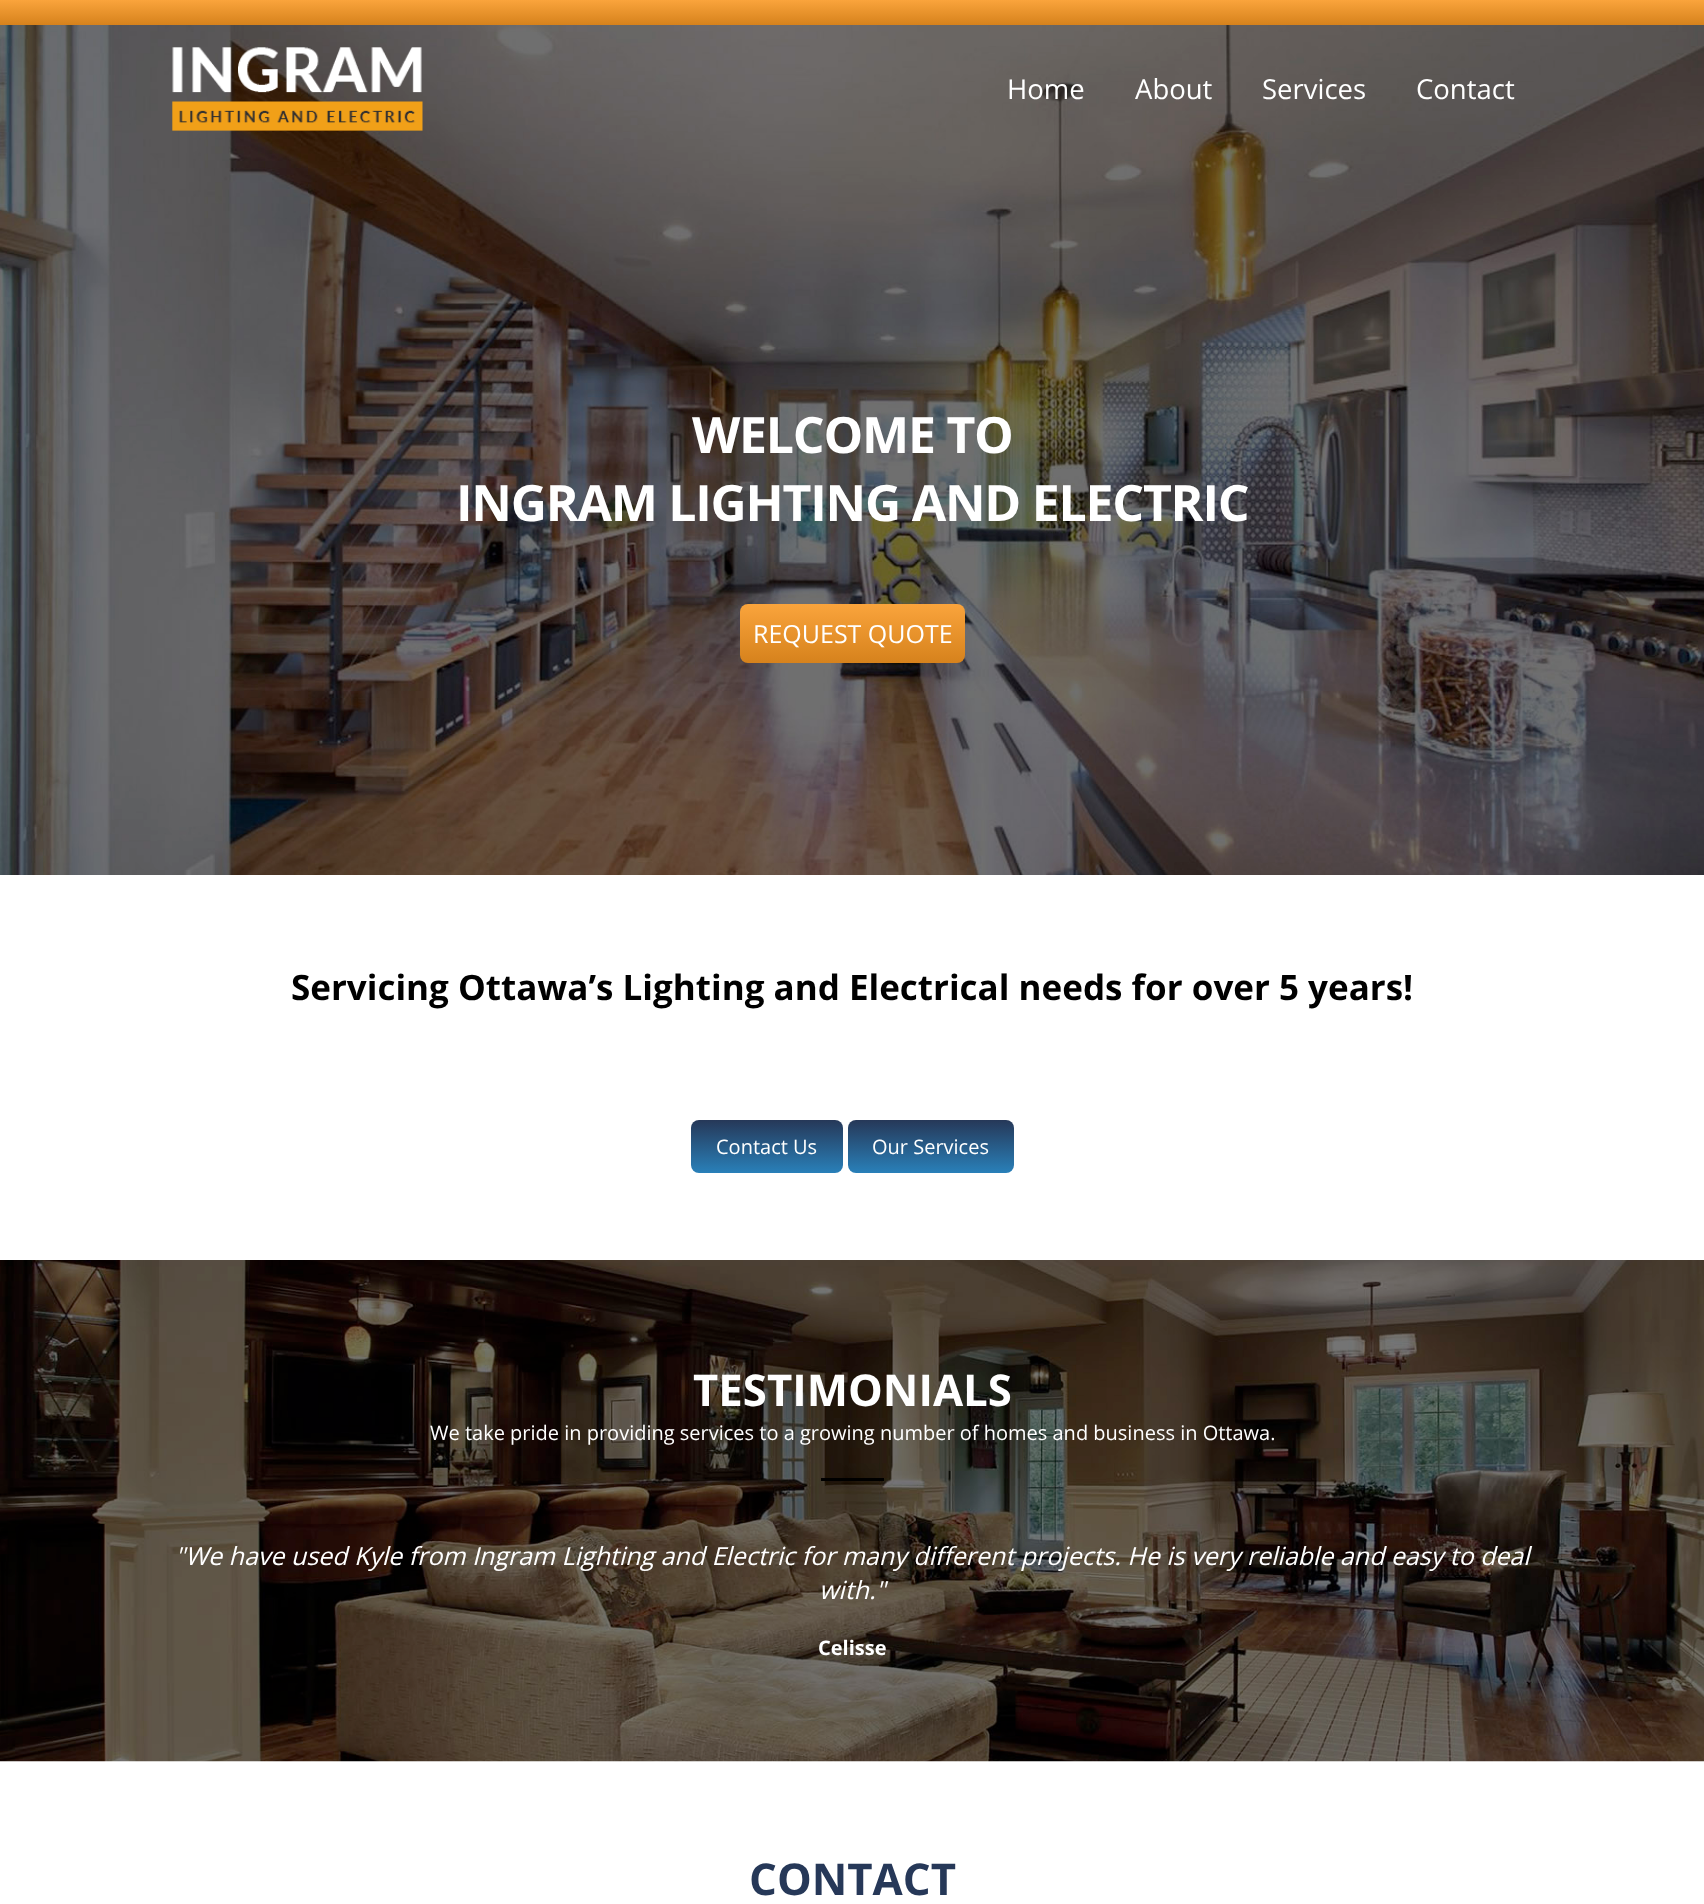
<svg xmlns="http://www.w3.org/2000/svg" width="1704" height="1904">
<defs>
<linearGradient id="g1" gradientUnits="userSpaceOnUse" x1="853" y1="0" x2="853" y2="25"><stop offset="0" stop-color="#faa43c"/><stop offset="1" stop-color="#d6821c"/></linearGradient>
<linearGradient id="g2" gradientUnits="userSpaceOnUse" x1="853" y1="604" x2="853" y2="663"><stop offset="0" stop-color="#faa43c"/><stop offset="1" stop-color="#d6821c"/></linearGradient>
<linearGradient id="g3" gradientUnits="userSpaceOnUse" x1="767" y1="1120" x2="767" y2="1173"><stop offset="0" stop-color="#263858"/><stop offset="1" stop-color="#2980b9"/></linearGradient>
<linearGradient id="g4" gradientUnits="userSpaceOnUse" x1="931" y1="1120" x2="931" y2="1173"><stop offset="0" stop-color="#263858"/><stop offset="1" stop-color="#2980b9"/></linearGradient>
</defs>
<rect width="100%" height="100%" fill="#fff"/>
<rect width="1704" height="25" fill="url(#g1)"/>
<image x="0" y="25" width="1704" height="850" href="media/1.png"/>
<image x="172" y="47" width="251" height="84" href="media/2.png"/>
<text x="1007" y="99" style="font-family:Open Sans;font-size:27.5px;fill:#fff">Home</text>
<text x="1135" y="99" style="font-family:Open Sans;font-size:27.5px;fill:#fff">About</text>
<text x="1262" y="99" style="font-family:Open Sans;font-size:27.5px;fill:#fff">Services</text>
<text x="1416" y="99" style="font-family:Open Sans;font-size:27.5px;fill:#fff">Contact</text>
<text x="692" y="453" style="font-family:Open Sans;font-size:50px;font-weight:bold;letter-spacing:-1.25px;fill:#fff">WELCOME TO</text>
<text x="456" y="521" style="font-family:Open Sans;font-size:50px;font-weight:bold;letter-spacing:-1.25px;fill:#fff">INGRAM LIGHTING AND ELECTRIC</text>
<rect x="740" y="604" width="225" height="59" rx="8" fill="url(#g2)"/>
<text x="753" y="643" style="font-family:Open Sans;font-size:25px;fill:#fff">REQUEST QUOTE</text>
<text x="291" y="1000" style="font-family:Open Sans;font-size:35px;font-weight:bold;fill:#000">Servicing Ottawa’s Lighting and Electrical needs for over 5 years!</text>
<rect x="691" y="1120" width="152" height="53" rx="8" fill="url(#g3)"/>
<text x="716" y="1154" style="font-family:Open Sans;font-size:20px;fill:#fff">Contact Us</text>
<rect x="848" y="1120" width="166" height="53" rx="8" fill="url(#g4)"/>
<text x="872" y="1154" style="font-family:Open Sans;font-size:20px;fill:#fff">Our Services</text>
<image x="0" y="1260" width="1704" height="502" href="media/3.png"/>
<text x="693" y="1406" style="font-family:Open Sans;font-size:43.75px;font-weight:bold;fill:#fff">TESTIMONIALS</text>
<text x="430" y="1440" style="font-family:Open Sans;font-size:20px;fill:#fff">We take pride in providing services to a growing number of homes and business in Ottawa.</text>
<rect x="821" y="1478" width="63" height="3" fill="#000"/>
<text x="175" y="1565" style="font-family:Open Sans;font-size:25px;font-style:italic;fill:#fff">"We have used Kyle from Ingram Lighting and Electric for many different projects. He is very reliable and easy to deal</text>
<text x="819" y="1599" style="font-family:Open Sans;font-size:25px;font-style:italic;fill:#fff">with."</text>
<text x="818" y="1655" style="font-family:Open Sans;font-size:20px;font-weight:bold;fill:#fff">Celisse</text>
<text x="749" y="1895" style="font-family:Open Sans;font-size:43.75px;font-weight:bold;fill:#263858">CONTACT</text>
</svg>
